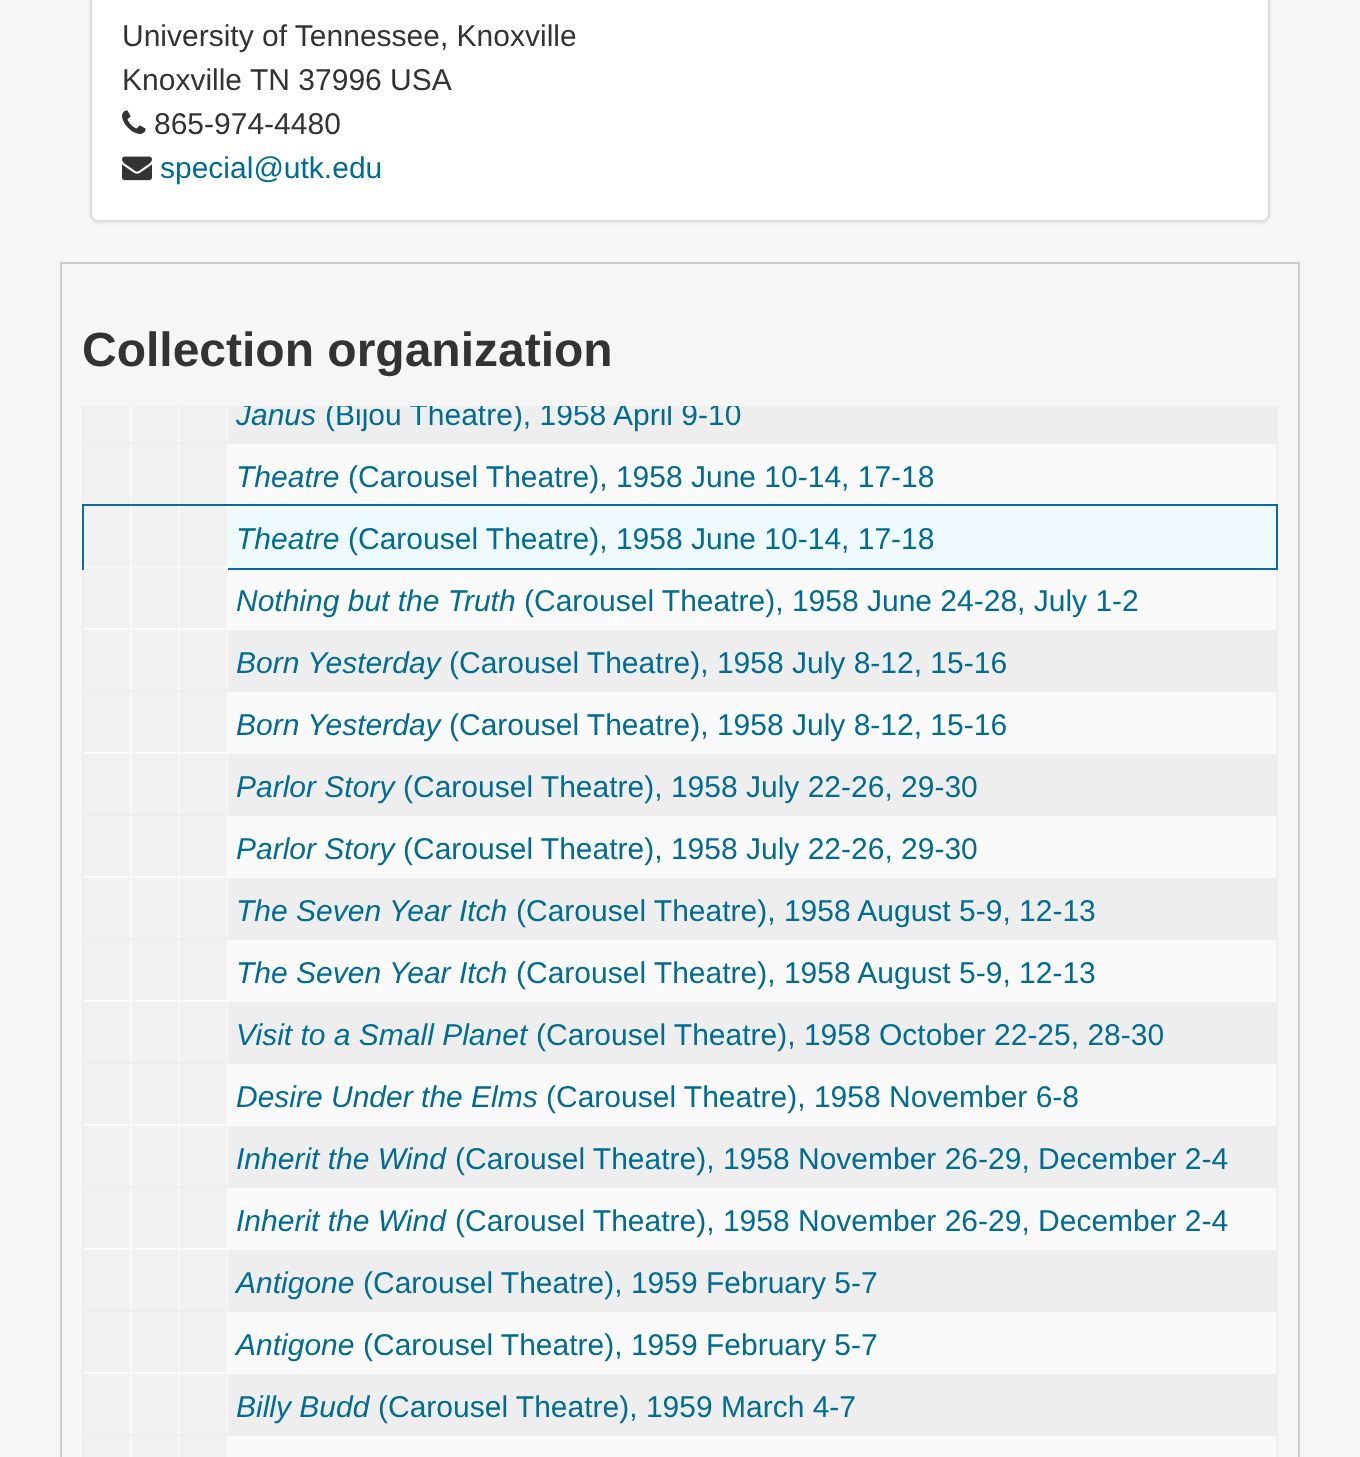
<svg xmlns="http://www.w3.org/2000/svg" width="1360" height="1457">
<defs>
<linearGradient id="g1" gradientUnits="userSpaceOnUse" x1="84" y1="412" x2="228" y2="412"><stop offset="0" stop-color="#f1f1f1"/><stop offset="0.32" stop-color="#f1f1f1"/><stop offset="0.33" stop-color="#fff"/><stop offset="0.33" stop-color="#f1f1f1"/><stop offset="0.65" stop-color="#f1f1f1"/><stop offset="0.67" stop-color="#fff"/><stop offset="0.67" stop-color="#f1f1f1"/><stop offset="0.99" stop-color="#f1f1f1"/><stop offset="1" stop-color="#fff"/></linearGradient>
<clipPath id="clip1"><rect x="84" y="406" width="1192" height="38"/></clipPath>
<linearGradient id="g2" gradientUnits="userSpaceOnUse" x1="84" y1="474" x2="228" y2="474"><stop offset="0" stop-color="#f1f1f1"/><stop offset="0.32" stop-color="#f1f1f1"/><stop offset="0.33" stop-color="#fff"/><stop offset="0.33" stop-color="#f1f1f1"/><stop offset="0.65" stop-color="#f1f1f1"/><stop offset="0.67" stop-color="#fff"/><stop offset="0.67" stop-color="#f1f1f1"/><stop offset="0.99" stop-color="#f1f1f1"/><stop offset="1" stop-color="#fff"/></linearGradient>
<linearGradient id="g3" gradientUnits="userSpaceOnUse" x1="84" y1="536" x2="228" y2="536"><stop offset="0" stop-color="#f1f1f1"/><stop offset="0.32" stop-color="#f1f1f1"/><stop offset="0.33" stop-color="#fff"/><stop offset="0.33" stop-color="#f1f1f1"/><stop offset="0.65" stop-color="#f1f1f1"/><stop offset="0.67" stop-color="#fff"/><stop offset="0.67" stop-color="#f1f1f1"/><stop offset="0.99" stop-color="#f1f1f1"/><stop offset="1" stop-color="#fff"/></linearGradient>
<linearGradient id="g4" gradientUnits="userSpaceOnUse" x1="84" y1="598" x2="228" y2="598"><stop offset="0" stop-color="#f1f1f1"/><stop offset="0.32" stop-color="#f1f1f1"/><stop offset="0.33" stop-color="#fff"/><stop offset="0.33" stop-color="#f1f1f1"/><stop offset="0.65" stop-color="#f1f1f1"/><stop offset="0.67" stop-color="#fff"/><stop offset="0.67" stop-color="#f1f1f1"/><stop offset="0.99" stop-color="#f1f1f1"/><stop offset="1" stop-color="#fff"/></linearGradient>
<linearGradient id="g5" gradientUnits="userSpaceOnUse" x1="84" y1="660" x2="228" y2="660"><stop offset="0" stop-color="#f1f1f1"/><stop offset="0.32" stop-color="#f1f1f1"/><stop offset="0.33" stop-color="#fff"/><stop offset="0.33" stop-color="#f1f1f1"/><stop offset="0.65" stop-color="#f1f1f1"/><stop offset="0.67" stop-color="#fff"/><stop offset="0.67" stop-color="#f1f1f1"/><stop offset="0.99" stop-color="#f1f1f1"/><stop offset="1" stop-color="#fff"/></linearGradient>
<linearGradient id="g6" gradientUnits="userSpaceOnUse" x1="84" y1="722" x2="228" y2="722"><stop offset="0" stop-color="#f1f1f1"/><stop offset="0.32" stop-color="#f1f1f1"/><stop offset="0.33" stop-color="#fff"/><stop offset="0.33" stop-color="#f1f1f1"/><stop offset="0.65" stop-color="#f1f1f1"/><stop offset="0.67" stop-color="#fff"/><stop offset="0.67" stop-color="#f1f1f1"/><stop offset="0.99" stop-color="#f1f1f1"/><stop offset="1" stop-color="#fff"/></linearGradient>
<linearGradient id="g7" gradientUnits="userSpaceOnUse" x1="84" y1="784" x2="228" y2="784"><stop offset="0" stop-color="#f1f1f1"/><stop offset="0.32" stop-color="#f1f1f1"/><stop offset="0.33" stop-color="#fff"/><stop offset="0.33" stop-color="#f1f1f1"/><stop offset="0.65" stop-color="#f1f1f1"/><stop offset="0.67" stop-color="#fff"/><stop offset="0.67" stop-color="#f1f1f1"/><stop offset="0.99" stop-color="#f1f1f1"/><stop offset="1" stop-color="#fff"/></linearGradient>
<linearGradient id="g8" gradientUnits="userSpaceOnUse" x1="84" y1="846" x2="228" y2="846"><stop offset="0" stop-color="#f1f1f1"/><stop offset="0.32" stop-color="#f1f1f1"/><stop offset="0.33" stop-color="#fff"/><stop offset="0.33" stop-color="#f1f1f1"/><stop offset="0.65" stop-color="#f1f1f1"/><stop offset="0.67" stop-color="#fff"/><stop offset="0.67" stop-color="#f1f1f1"/><stop offset="0.99" stop-color="#f1f1f1"/><stop offset="1" stop-color="#fff"/></linearGradient>
<linearGradient id="g9" gradientUnits="userSpaceOnUse" x1="84" y1="908" x2="228" y2="908"><stop offset="0" stop-color="#f1f1f1"/><stop offset="0.32" stop-color="#f1f1f1"/><stop offset="0.33" stop-color="#fff"/><stop offset="0.33" stop-color="#f1f1f1"/><stop offset="0.65" stop-color="#f1f1f1"/><stop offset="0.67" stop-color="#fff"/><stop offset="0.67" stop-color="#f1f1f1"/><stop offset="0.99" stop-color="#f1f1f1"/><stop offset="1" stop-color="#fff"/></linearGradient>
<linearGradient id="g10" gradientUnits="userSpaceOnUse" x1="84" y1="970" x2="228" y2="970"><stop offset="0" stop-color="#f1f1f1"/><stop offset="0.32" stop-color="#f1f1f1"/><stop offset="0.33" stop-color="#fff"/><stop offset="0.33" stop-color="#f1f1f1"/><stop offset="0.65" stop-color="#f1f1f1"/><stop offset="0.67" stop-color="#fff"/><stop offset="0.67" stop-color="#f1f1f1"/><stop offset="0.99" stop-color="#f1f1f1"/><stop offset="1" stop-color="#fff"/></linearGradient>
<linearGradient id="g11" gradientUnits="userSpaceOnUse" x1="84" y1="1032" x2="228" y2="1032"><stop offset="0" stop-color="#f1f1f1"/><stop offset="0.32" stop-color="#f1f1f1"/><stop offset="0.33" stop-color="#fff"/><stop offset="0.33" stop-color="#f1f1f1"/><stop offset="0.65" stop-color="#f1f1f1"/><stop offset="0.67" stop-color="#fff"/><stop offset="0.67" stop-color="#f1f1f1"/><stop offset="0.99" stop-color="#f1f1f1"/><stop offset="1" stop-color="#fff"/></linearGradient>
<linearGradient id="g12" gradientUnits="userSpaceOnUse" x1="84" y1="1094" x2="228" y2="1094"><stop offset="0" stop-color="#f1f1f1"/><stop offset="0.32" stop-color="#f1f1f1"/><stop offset="0.33" stop-color="#fff"/><stop offset="0.33" stop-color="#f1f1f1"/><stop offset="0.65" stop-color="#f1f1f1"/><stop offset="0.67" stop-color="#fff"/><stop offset="0.67" stop-color="#f1f1f1"/><stop offset="0.99" stop-color="#f1f1f1"/><stop offset="1" stop-color="#fff"/></linearGradient>
<linearGradient id="g13" gradientUnits="userSpaceOnUse" x1="84" y1="1156" x2="228" y2="1156"><stop offset="0" stop-color="#f1f1f1"/><stop offset="0.32" stop-color="#f1f1f1"/><stop offset="0.33" stop-color="#fff"/><stop offset="0.33" stop-color="#f1f1f1"/><stop offset="0.65" stop-color="#f1f1f1"/><stop offset="0.67" stop-color="#fff"/><stop offset="0.67" stop-color="#f1f1f1"/><stop offset="0.99" stop-color="#f1f1f1"/><stop offset="1" stop-color="#fff"/></linearGradient>
<linearGradient id="g14" gradientUnits="userSpaceOnUse" x1="84" y1="1218" x2="228" y2="1218"><stop offset="0" stop-color="#f1f1f1"/><stop offset="0.32" stop-color="#f1f1f1"/><stop offset="0.33" stop-color="#fff"/><stop offset="0.33" stop-color="#f1f1f1"/><stop offset="0.65" stop-color="#f1f1f1"/><stop offset="0.67" stop-color="#fff"/><stop offset="0.67" stop-color="#f1f1f1"/><stop offset="0.99" stop-color="#f1f1f1"/><stop offset="1" stop-color="#fff"/></linearGradient>
<linearGradient id="g15" gradientUnits="userSpaceOnUse" x1="84" y1="1280" x2="228" y2="1280"><stop offset="0" stop-color="#f1f1f1"/><stop offset="0.32" stop-color="#f1f1f1"/><stop offset="0.33" stop-color="#fff"/><stop offset="0.33" stop-color="#f1f1f1"/><stop offset="0.65" stop-color="#f1f1f1"/><stop offset="0.67" stop-color="#fff"/><stop offset="0.67" stop-color="#f1f1f1"/><stop offset="0.99" stop-color="#f1f1f1"/><stop offset="1" stop-color="#fff"/></linearGradient>
<linearGradient id="g16" gradientUnits="userSpaceOnUse" x1="84" y1="1342" x2="228" y2="1342"><stop offset="0" stop-color="#f1f1f1"/><stop offset="0.32" stop-color="#f1f1f1"/><stop offset="0.33" stop-color="#fff"/><stop offset="0.33" stop-color="#f1f1f1"/><stop offset="0.65" stop-color="#f1f1f1"/><stop offset="0.67" stop-color="#fff"/><stop offset="0.67" stop-color="#f1f1f1"/><stop offset="0.99" stop-color="#f1f1f1"/><stop offset="1" stop-color="#fff"/></linearGradient>
<linearGradient id="g17" gradientUnits="userSpaceOnUse" x1="84" y1="1404" x2="228" y2="1404"><stop offset="0" stop-color="#f1f1f1"/><stop offset="0.32" stop-color="#f1f1f1"/><stop offset="0.33" stop-color="#fff"/><stop offset="0.33" stop-color="#f1f1f1"/><stop offset="0.65" stop-color="#f1f1f1"/><stop offset="0.67" stop-color="#fff"/><stop offset="0.67" stop-color="#f1f1f1"/><stop offset="0.99" stop-color="#f1f1f1"/><stop offset="1" stop-color="#fff"/></linearGradient>
<linearGradient id="g18" gradientUnits="userSpaceOnUse" x1="84" y1="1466" x2="228" y2="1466"><stop offset="0" stop-color="#f1f1f1"/><stop offset="0.32" stop-color="#f1f1f1"/><stop offset="0.33" stop-color="#fff"/><stop offset="0.33" stop-color="#f1f1f1"/><stop offset="0.65" stop-color="#f1f1f1"/><stop offset="0.67" stop-color="#fff"/><stop offset="0.67" stop-color="#f1f1f1"/><stop offset="0.99" stop-color="#f1f1f1"/><stop offset="1" stop-color="#fff"/></linearGradient>
</defs>
<rect width="100%" height="100%" fill="#f6f6f6"/>
<rect x="90" y="-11" width="1180" height="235" rx="8" fill="#0000000d" filter="blur(1px)"/>
<rect x="91" y="-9" width="1178" height="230" rx="7" fill="#fff" stroke="#ddd" stroke-width="2"/>
<text x="122" y="46" style="font-family:Liberation Sans;font-size:30px;fill:#333">University of Tennessee, Knoxville</text>
<text x="122" y="90" style="font-family:Liberation Sans;font-size:30px;fill:#333">Knoxville</text>
<text x="250" y="90" style="font-family:Liberation Sans;font-size:30px;fill:#333">TN 37996 USA</text>
<image x="122" y="110" width="24" height="24" href="media/1.png"/>
<text x="154" y="134" style="font-family:Liberation Sans;font-size:30px;fill:#333">865-974-4480</text>
<image x="122" y="156" width="30" height="25" href="media/2.png"/>
<text x="160" y="178" style="font-family:Liberation Sans;font-size:30px;fill:#006c93">special@utk.edu</text>
<rect x="61" y="263" width="1238" height="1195" fill="none" stroke="#ccc" stroke-width="2"/>
<text x="82" y="366" style="font-family:Liberation Sans;font-size:48px;font-weight:bold;fill:#333">Collection organization</text>
<rect x="82" y="406" width="1196" height="1051" fill="#eee"/>
<rect x="84" y="406" width="144" height="36" fill="url(#g1)"/>
<g clip-path="url(#clip1)">
<text x="236" y="425" style="font-family:Liberation Sans;font-size:30px;font-style:italic;fill:#006c93">Janus</text>
<text x="325" y="425" style="font-family:Liberation Sans;font-size:30px;fill:#006c93">(Bijou Theatre), 1958 April 9-10</text>
</g>
<rect x="228" y="444" width="1048" height="60" fill="#fafafa"/>
<rect x="84" y="444" width="144" height="60" fill="url(#g2)"/>
<text x="236" y="487" style="font-family:Liberation Sans;font-size:30px;font-style:italic;fill:#006c93">Theatre</text>
<text x="348" y="487" style="font-family:Liberation Sans;font-size:30px;fill:#006c93">(Carousel Theatre), 1958 June 10-14, 17-18</text>
<rect x="83" y="505" width="1194" height="64" fill="none" stroke="#0a6aa1" stroke-width="2"/>
<rect x="84" y="506" width="1192" height="62" fill="#effaff"/>
<rect x="84" y="506" width="144" height="60" fill="url(#g3)"/>
<text x="236" y="549" style="font-family:Liberation Sans;font-size:30px;font-style:italic;fill:#006c93">Theatre</text>
<text x="348" y="549" style="font-family:Liberation Sans;font-size:30px;fill:#006c93">(Carousel Theatre), 1958 June 10-14, 17-18</text>
<rect x="84" y="570" width="1192" height="60" fill="#fafafa"/>
<rect x="84" y="568" width="144" height="60" fill="url(#g4)"/>
<text x="236" y="611" style="font-family:Liberation Sans;font-size:30px;font-style:italic;fill:#006c93">Nothing but the Truth</text>
<text x="524" y="611" style="font-family:Liberation Sans;font-size:30px;fill:#006c93">(Carousel Theatre), 1958 June 24-28, July 1-2</text>
<rect x="84" y="630" width="144" height="60" fill="url(#g5)"/>
<text x="236" y="673" style="font-family:Liberation Sans;font-size:30px;font-style:italic;fill:#006c93">Born Yesterday</text>
<text x="449" y="673" style="font-family:Liberation Sans;font-size:30px;fill:#006c93">(Carousel Theatre), 1958 July 8-12, 15-16</text>
<rect x="84" y="692" width="1192" height="62" fill="#fafafa"/>
<rect x="84" y="692" width="143" height="60" fill="url(#g6)"/>
<text x="236" y="735" style="font-family:Liberation Sans;font-size:30px;font-style:italic;fill:#006c93">Born Yesterday</text>
<text x="449" y="735" style="font-family:Liberation Sans;font-size:30px;fill:#006c93">(Carousel Theatre), 1958 July 8-12, 15-16</text>
<rect x="84" y="754" width="144" height="60" fill="url(#g7)"/>
<text x="236" y="797" style="font-family:Liberation Sans;font-size:30px;font-style:italic;fill:#006c93">Parlor Story</text>
<text x="403" y="797" style="font-family:Liberation Sans;font-size:30px;fill:#006c93">(Carousel Theatre), 1958 July 22-26, 29-30</text>
<rect x="84" y="816" width="1192" height="62" fill="#fafafa"/>
<rect x="84" y="816" width="143" height="60" fill="url(#g8)"/>
<text x="236" y="859" style="font-family:Liberation Sans;font-size:30px;font-style:italic;fill:#006c93">Parlor Story</text>
<text x="403" y="859" style="font-family:Liberation Sans;font-size:30px;fill:#006c93">(Carousel Theatre), 1958 July 22-26, 29-30</text>
<rect x="84" y="878" width="144" height="60" fill="url(#g9)"/>
<text x="236" y="921" style="font-family:Liberation Sans;font-size:30px;font-style:italic;fill:#006c93">The Seven Year Itch</text>
<text x="516" y="921" style="font-family:Liberation Sans;font-size:30px;fill:#006c93">(Carousel Theatre), 1958 August 5-9, 12-13</text>
<rect x="84" y="940" width="1192" height="62" fill="#fafafa"/>
<rect x="84" y="940" width="143" height="60" fill="url(#g10)"/>
<text x="236" y="983" style="font-family:Liberation Sans;font-size:30px;font-style:italic;fill:#006c93">The Seven Year Itch</text>
<text x="516" y="983" style="font-family:Liberation Sans;font-size:30px;fill:#006c93">(Carousel Theatre), 1958 August 5-9, 12-13</text>
<rect x="84" y="1002" width="144" height="60" fill="url(#g11)"/>
<text x="236" y="1045" style="font-family:Liberation Sans;font-size:30px;font-style:italic;fill:#006c93">Visit to a Small Planet</text>
<text x="536" y="1045" style="font-family:Liberation Sans;font-size:30px;fill:#006c93">(Carousel Theatre), 1958 October 22-25, 28-30</text>
<rect x="84" y="1064" width="1192" height="62" fill="#fafafa"/>
<rect x="84" y="1064" width="143" height="60" fill="url(#g12)"/>
<text x="236" y="1107" style="font-family:Liberation Sans;font-size:30px;font-style:italic;fill:#006c93">Desire Under the Elms</text>
<text x="546" y="1107" style="font-family:Liberation Sans;font-size:30px;fill:#006c93">(Carousel Theatre), 1958 November 6-8</text>
<rect x="84" y="1126" width="144" height="60" fill="url(#g13)"/>
<text x="236" y="1169" style="font-family:Liberation Sans;font-size:30px;font-style:italic;fill:#006c93">Inherit the Wind</text>
<text x="455" y="1169" style="font-family:Liberation Sans;font-size:30px;fill:#006c93">(Carousel Theatre), 1958 November 26-29, December 2-4</text>
<rect x="84" y="1188" width="1192" height="62" fill="#fafafa"/>
<rect x="84" y="1188" width="143" height="60" fill="url(#g14)"/>
<text x="236" y="1231" style="font-family:Liberation Sans;font-size:30px;font-style:italic;fill:#006c93">Inherit the Wind</text>
<text x="455" y="1231" style="font-family:Liberation Sans;font-size:30px;fill:#006c93">(Carousel Theatre), 1958 November 26-29, December 2-4</text>
<rect x="84" y="1250" width="144" height="60" fill="url(#g15)"/>
<text x="236" y="1293" style="font-family:Liberation Sans;font-size:30px;font-style:italic;fill:#006c93">Antigone</text>
<text x="363" y="1293" style="font-family:Liberation Sans;font-size:30px;fill:#006c93">(Carousel Theatre), 1959 February 5-7</text>
<rect x="84" y="1312" width="1192" height="62" fill="#fafafa"/>
<rect x="84" y="1312" width="143" height="60" fill="url(#g16)"/>
<text x="236" y="1355" style="font-family:Liberation Sans;font-size:30px;font-style:italic;fill:#006c93">Antigone</text>
<text x="363" y="1355" style="font-family:Liberation Sans;font-size:30px;fill:#006c93">(Carousel Theatre), 1959 February 5-7</text>
<rect x="84" y="1374" width="144" height="60" fill="url(#g17)"/>
<text x="236" y="1417" style="font-family:Liberation Sans;font-size:30px;font-style:italic;fill:#006c93">Billy Budd</text>
<text x="378" y="1417" style="font-family:Liberation Sans;font-size:30px;fill:#006c93">(Carousel Theatre), 1959 March 4-7</text>
<rect x="228" y="1436" width="1048" height="21" fill="#fafafa"/>
<rect x="84" y="1436" width="144" height="21" fill="url(#g18)"/>
</svg>
